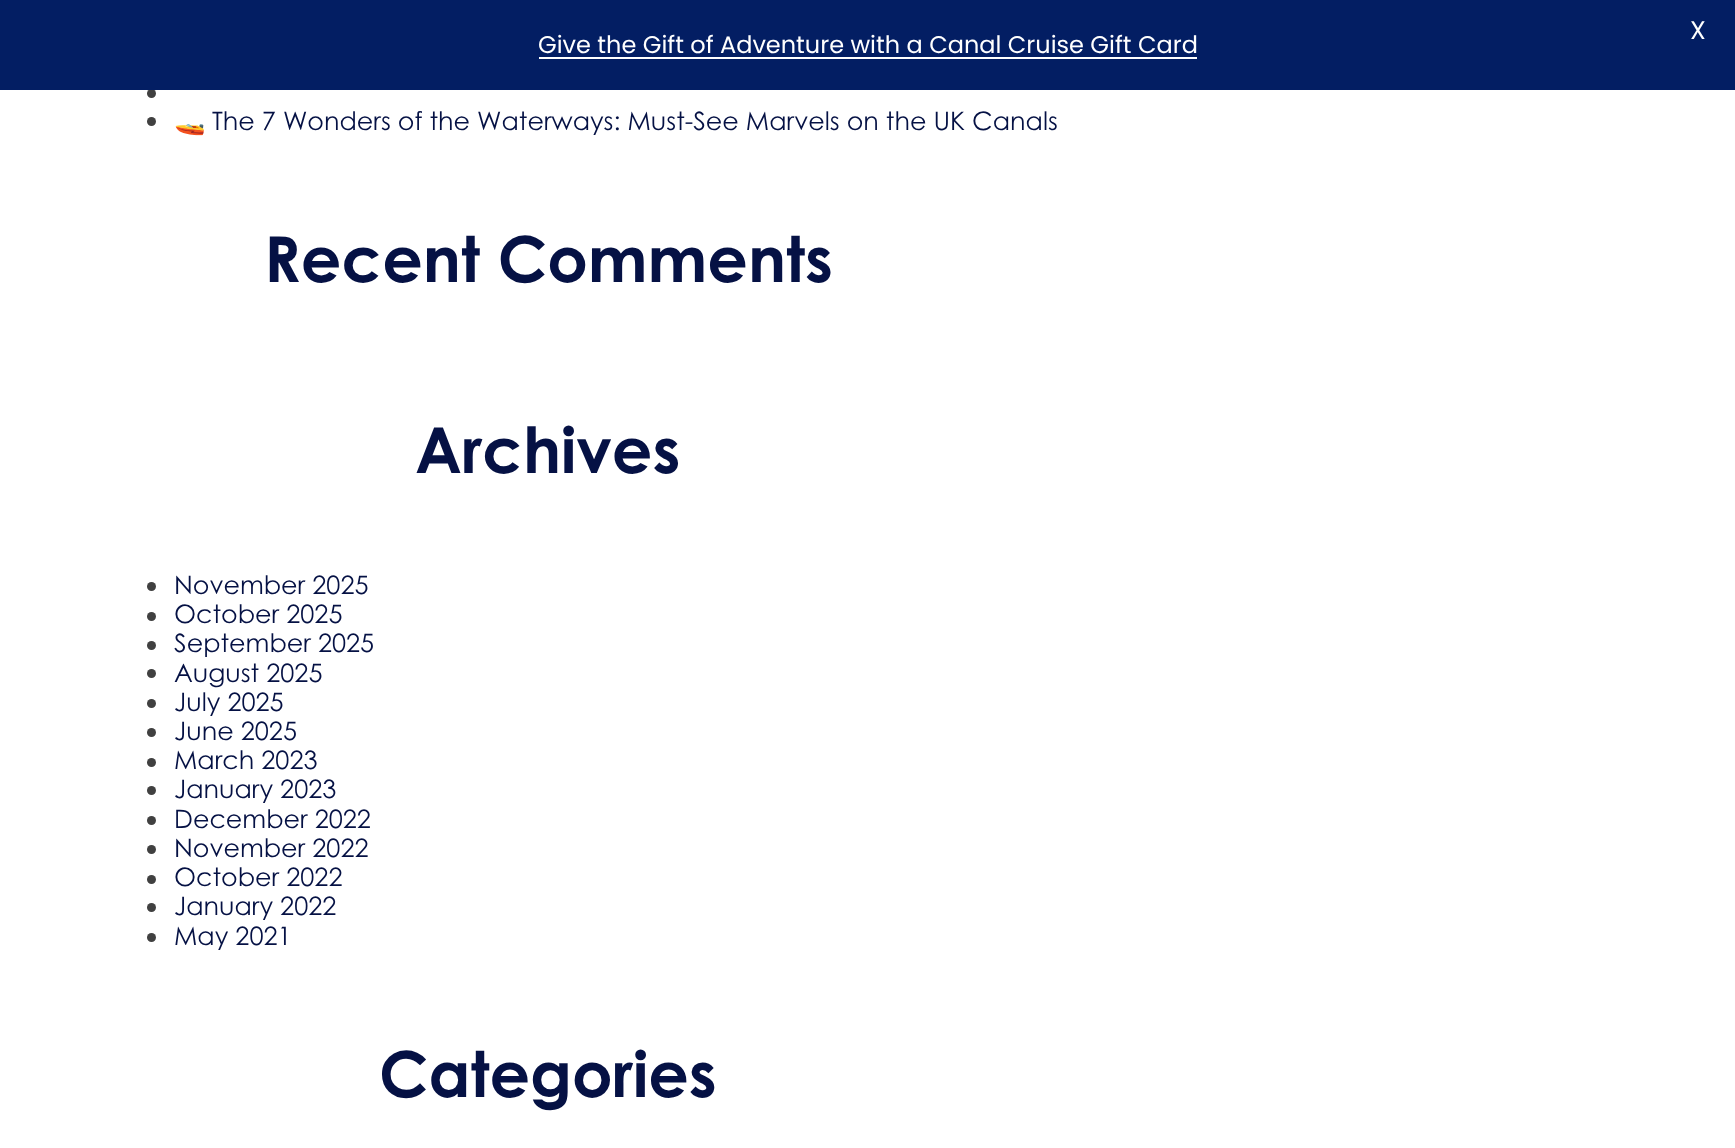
<svg xmlns="http://www.w3.org/2000/svg" width="1735" height="1148">
<rect width="100%" height="100%" fill="#fff"/>
<circle cx="151.5" cy="93.5" r="4.5" fill="#404040"/>
<rect width="1735" height="90" fill="#031e63"/>
<text x="1690" y="39" style="font-family:Poppins;font-size:25.4px;fill:#fff">X</text>
<text x="538" y="53" style="font-family:Poppins;font-size:24px;fill:#fff">Give the Gift of Adventure with a Canal Cruise Gift Card</text>
<rect x="539" y="57" width="658" height="2" fill="#fff"/>
<circle cx="151.5" cy="121.5" r="4.5" fill="#404040"/>
<text x="174" y="130" style="font-family:Noto Color Emoji;font-size:25.4px;fill:#051144">🚤</text>
<text x="212" y="130" style="font-family:Century Gothic;font-size:25.4px;fill:#051144">The 7 Wonders of the Waterways: Must-See Marvels on the UK Canals</text>
<text x="264" y="282" style="font-family:Century Gothic;font-size:63.5px;font-weight:bold;fill:#051144">Recent Comments</text>
<text x="415" y="473" style="font-family:Century Gothic;font-size:63.5px;font-weight:bold;fill:#051144">Archives</text>
<circle cx="151.5" cy="586.5" r="4.5" fill="#404040"/>
<text x="174" y="594" style="font-family:Century Gothic;font-size:25.4px;fill:#051144">November 2025</text>
<circle cx="151.5" cy="616.5" r="4.5" fill="#404040"/>
<text x="174" y="623" style="font-family:Century Gothic;font-size:25.4px;fill:#051144">October 2025</text>
<circle cx="151.5" cy="645.5" r="4.5" fill="#404040"/>
<text x="174" y="652" style="font-family:Century Gothic;font-size:25.4px;fill:#051144">September 2025</text>
<circle cx="151.5" cy="673.5" r="4.5" fill="#404040"/>
<text x="174" y="682" style="font-family:Century Gothic;font-size:25.4px;fill:#051144">August 2025</text>
<circle cx="151.5" cy="703.5" r="4.5" fill="#404040"/>
<text x="174" y="711" style="font-family:Century Gothic;font-size:25.4px;fill:#051144">July 2025</text>
<circle cx="151.5" cy="732.5" r="4.5" fill="#404040"/>
<text x="174" y="740" style="font-family:Century Gothic;font-size:25.4px;fill:#051144">June 2025</text>
<circle cx="151.5" cy="762.5" r="4.5" fill="#404040"/>
<text x="174" y="769" style="font-family:Century Gothic;font-size:25.4px;fill:#051144">March 2023</text>
<circle cx="151.5" cy="790.5" r="4.5" fill="#404040"/>
<text x="174" y="798" style="font-family:Century Gothic;font-size:25.4px;fill:#051144">January 2023</text>
<circle cx="151.5" cy="820.5" r="4.5" fill="#404040"/>
<text x="174" y="828" style="font-family:Century Gothic;font-size:25.4px;fill:#051144">December 2022</text>
<circle cx="151.5" cy="849.5" r="4.5" fill="#404040"/>
<text x="174" y="857" style="font-family:Century Gothic;font-size:25.4px;fill:#051144">November 2022</text>
<circle cx="151.5" cy="879.5" r="4.5" fill="#404040"/>
<text x="174" y="886" style="font-family:Century Gothic;font-size:25.4px;fill:#051144">October 2022</text>
<circle cx="151.5" cy="907.5" r="4.5" fill="#404040"/>
<text x="174" y="915" style="font-family:Century Gothic;font-size:25.4px;fill:#051144">January 2022</text>
<circle cx="151.5" cy="937.5" r="4.5" fill="#404040"/>
<text x="174" y="945" style="font-family:Century Gothic;font-size:25.4px;fill:#051144">May 2021</text>
<text x="379" y="1097" style="font-family:Century Gothic;font-size:63.5px;font-weight:bold;fill:#051144">Categories</text>
</svg>
